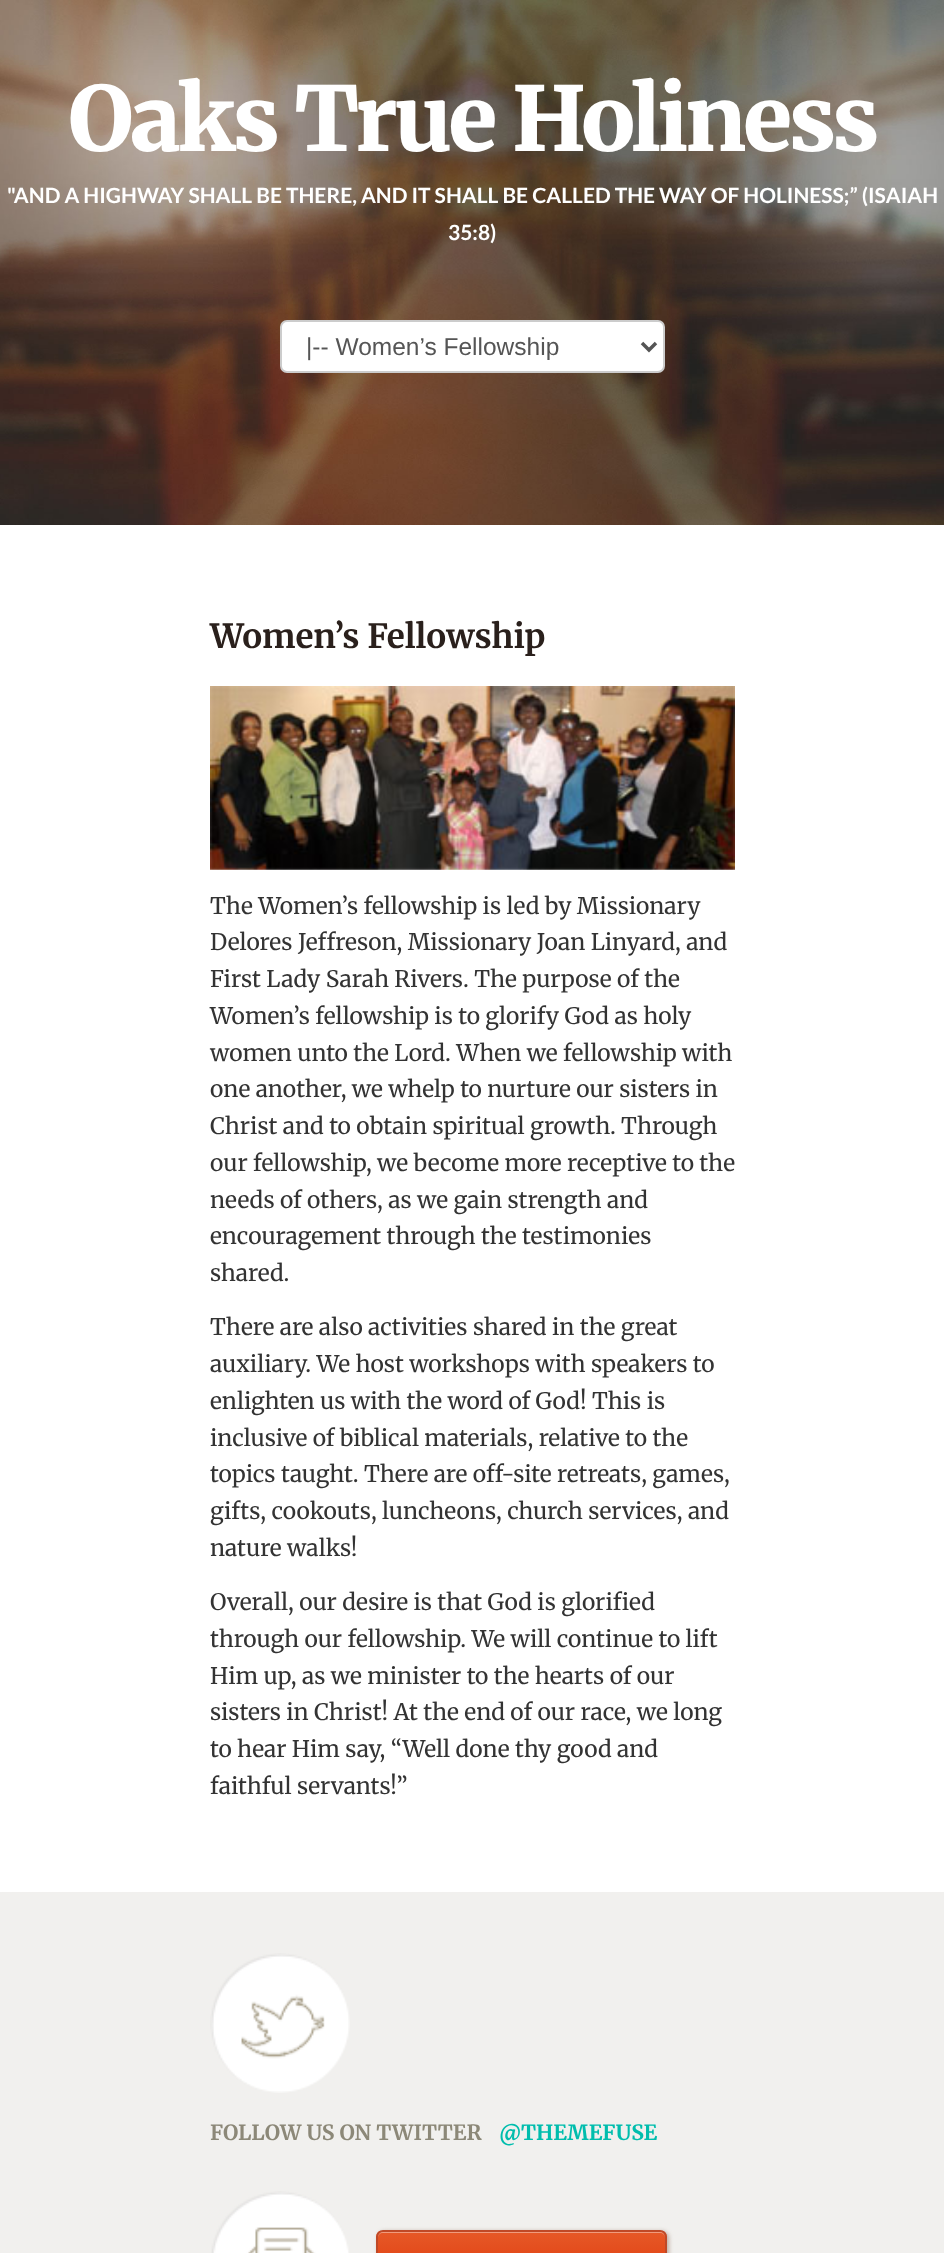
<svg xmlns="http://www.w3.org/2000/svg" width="944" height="2253">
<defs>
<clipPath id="clip1"><rect x="376" y="2230" width="291" height="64" rx="7"/></clipPath>
<linearGradient id="g1" gradientUnits="userSpaceOnUse" x1="522" y1="2231" x2="522" y2="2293"><stop offset="0" stop-color="#e65927"/><stop offset="0.4" stop-color="#e34a1b"/><stop offset="1" stop-color="#dd3d15"/></linearGradient>
</defs>
<rect width="100%" height="100%" fill="#fff"/>
<image x="0" y="0" width="944" height="525" href="media/1.png"/>
<text x="68" y="151" style="font-family:Merriweather;font-size:89.25px;font-weight:900;letter-spacing:-3.5px;fill:#fff">Oaks True Holiness</text>
<text x="7" y="203" style="font-family:Lato;font-size:21px;font-weight:bold;fill:#fff">"AND A HIGHWAY SHALL BE THERE, AND IT SHALL BE CALLED THE WAY OF HOLINESS;” (ISAIAH</text>
<text x="448" y="240" style="font-family:Lato;font-size:21px;font-weight:bold;fill:#fff">35:8)</text>
<rect x="281" y="321" width="383" height="51" rx="6" fill="#fff" stroke="#ccc" stroke-width="2"/>
<path d="M642 343l7 7l7-7" fill="none" stroke="#555" stroke-width="3.5"/>
<text x="306" y="355" style="font-family:Liberation Sans;font-size:24.5px;fill:#555">|-- Women’s Fellowship</text>
<text x="210" y="648" style="font-family:Merriweather;font-size:33.25px;font-weight:bold;fill:#2a201c">Women’s Fellowship</text>
<image x="210" y="686" width="525" height="184" href="media/2.png"/>
<text x="210" y="914" style="font-family:Merriweather;font-size:22.75px;fill:#333">The Women’s fellowship is led by Missionary</text>
<text x="210" y="950" style="font-family:Merriweather;font-size:22.75px;fill:#333">Delores Jeffreson, Missionary Joan Linyard, and</text>
<text x="210" y="987" style="font-family:Merriweather;font-size:22.75px;fill:#333">First Lady Sarah Rivers. The purpose of the</text>
<text x="210" y="1024" style="font-family:Merriweather;font-size:22.75px;fill:#333">Women’s fellowship is to glorify God as holy</text>
<text x="210" y="1061" style="font-family:Merriweather;font-size:22.75px;fill:#333">women unto the Lord. When we fellowship with</text>
<text x="210" y="1097" style="font-family:Merriweather;font-size:22.75px;fill:#333">one another, we whelp to nurture our sisters in</text>
<text x="210" y="1134" style="font-family:Merriweather;font-size:22.75px;fill:#333">Christ and to obtain spiritual growth. Through</text>
<text x="210" y="1171" style="font-family:Merriweather;font-size:22.75px;fill:#333">our fellowship, we become more receptive to the</text>
<text x="210" y="1208" style="font-family:Merriweather;font-size:22.75px;fill:#333">needs of others, as we gain strength and</text>
<text x="210" y="1244" style="font-family:Merriweather;font-size:22.75px;fill:#333">encouragement through the testimonies</text>
<text x="210" y="1281" style="font-family:Merriweather;font-size:22.75px;fill:#333">shared.</text>
<text x="210" y="1335" style="font-family:Merriweather;font-size:22.75px;fill:#333">There are also activities shared in the great</text>
<text x="210" y="1372" style="font-family:Merriweather;font-size:22.75px;fill:#333">auxiliary. We host workshops with speakers to</text>
<text x="210" y="1409" style="font-family:Merriweather;font-size:22.75px;fill:#333">enlighten us with the word of God! This is</text>
<text x="210" y="1446" style="font-family:Merriweather;font-size:22.75px;fill:#333">inclusive of biblical materials, relative to the</text>
<text x="210" y="1482" style="font-family:Merriweather;font-size:22.75px;fill:#333">topics taught. There are off-site retreats, games,</text>
<text x="210" y="1519" style="font-family:Merriweather;font-size:22.75px;fill:#333">gifts, cookouts, luncheons, church services, and</text>
<text x="210" y="1556" style="font-family:Merriweather;font-size:22.75px;fill:#333">nature walks!</text>
<text x="210" y="1610" style="font-family:Merriweather;font-size:22.75px;fill:#333">Overall, our desire is that God is glorified</text>
<text x="210" y="1647" style="font-family:Merriweather;font-size:22.75px;fill:#333">through our fellowship. We will continue to lift</text>
<text x="210" y="1684" style="font-family:Merriweather;font-size:22.75px;fill:#333">Him up, as we minister to the hearts of our</text>
<text x="210" y="1720" style="font-family:Merriweather;font-size:22.75px;fill:#333">sisters in Christ! At the end of our race, we long</text>
<text x="210" y="1757" style="font-family:Merriweather;font-size:22.75px;fill:#333">to hear Him say, “Well done thy good and</text>
<text x="210" y="1794" style="font-family:Merriweather;font-size:22.75px;fill:#333">faithful servants!”</text>
<rect y="1892" width="944" height="361" fill="#f1f0ee"/>
<image x="210" y="1953" width="140" height="140" href="media/3.png"/>
<text x="210" y="2140" style="font-family:Merriweather;font-size:21px;font-weight:bold;fill:#8c8878">FOLLOW US ON TWITTER</text>
<text x="499" y="2140" style="font-family:Merriweather;font-size:21px;font-weight:bold;fill:#00bdad">@THEMEFUSE</text>
<image x="211" y="2191" width="138" height="62" href="media/4.png"/>
<rect x="378" y="2231" width="291" height="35" rx="7" fill="#9a7d6c96" filter="blur(2px)"/>
<g clip-path="url(#clip1)">
<rect x="376" y="2231" width="291" height="22" fill="url(#g1)"/>
</g>
<path d="M383 2233h277c3 0 5 2 5 5c0-3-1-7-5-7h-278c-4 1-4 4-4 7c0-3 2-5 5-5z" fill="#f09b7d"/>
<rect x="377" y="2231" width="289" height="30" rx="6" fill="none" stroke="#bf4927" stroke-width="2"/>
</svg>
